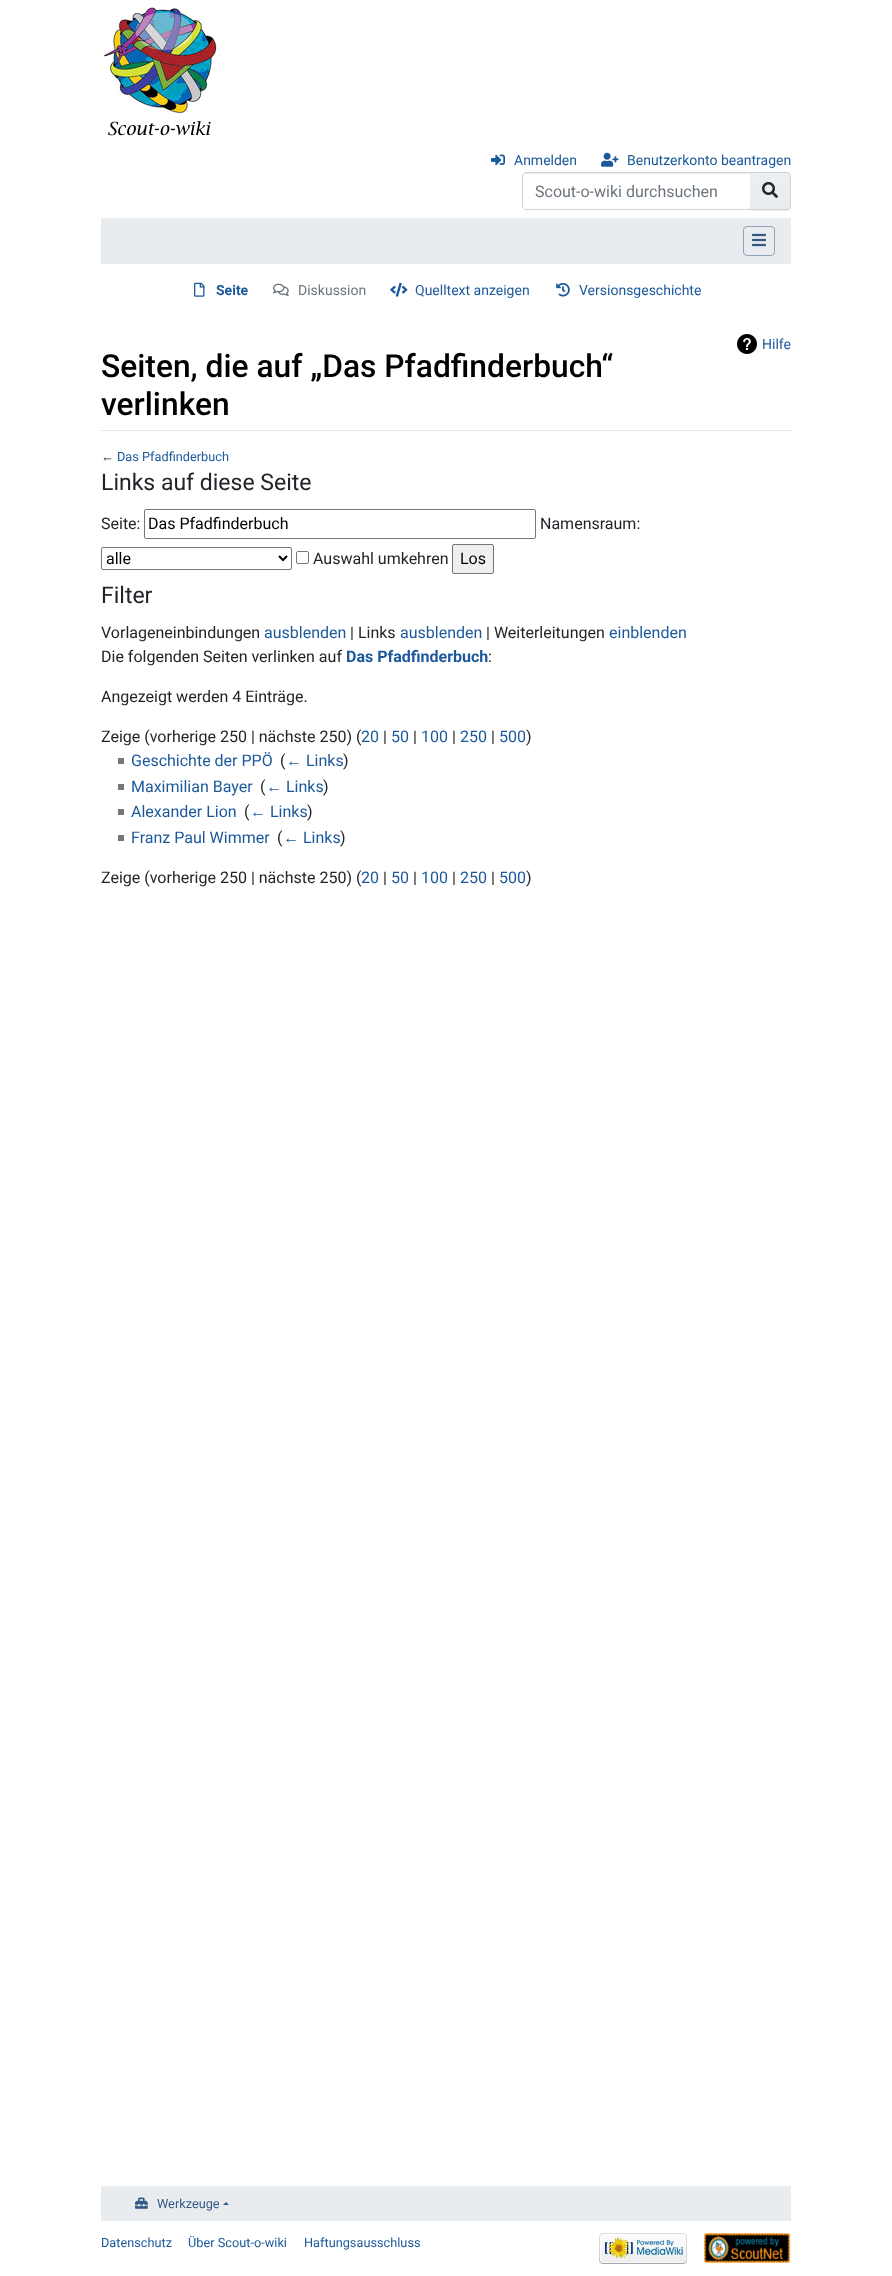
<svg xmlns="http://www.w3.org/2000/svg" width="892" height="2276">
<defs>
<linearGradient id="g1" gradientUnits="userSpaceOnUse" x1="770" y1="173" x2="770" y2="209"><stop offset="0" stop-color="#eceff1"/><stop offset="1" stop-color="#e9ecef"/></linearGradient>
</defs>
<rect width="100%" height="100%" fill="#fff"/>
<image x="102" y="7" width="119" height="129" href="media/1.png"/>
<image x="491" y="154" width="14" height="12" href="media/2.png"/>
<text x="514" y="165" style="font-family:Roboto;font-size:14px;fill:#1b599b">Anmelden</text>
<image x="601" y="152" width="18" height="15" href="media/3.png"/>
<text x="627" y="165" style="font-family:Roboto;font-size:14px;fill:#1b599b">Benutzerkonto beantragen</text>
<path d="M526 174h224v-1h-224c-2 0-3 2-3 4c0-2 1-3 3-3z" fill="#ececec"/>
<path d="M526 172.5h224.5v37h-224.5c-2 0-3.5-1.5-3.5-3.5v-30c0-2 1.5-3.5 3.5-3.5z" fill="none" stroke="#ced4da"/>
<text x="535" y="197" style="font-family:Roboto;font-size:16px;fill:#6c757d">Scout-o-wiki durchsuchen</text>
<rect x="750" y="173" width="41" height="38" rx="4" fill="#00000012" filter="blur(0.5px)"/>
<path d="M750 173h37c1.5 0 3 1.5 3 3v30c0 1.5-1.5 3-3 3h-37z" fill="url(#g1)"/>
<path d="M750 174h37c2 0 3 1 3 3v-1c0-2-1-3-3-3h-37z" fill="#ffffff26"/>
<path d="M750 172h37c2 0 4 2 4 4v30c0 2-2 4-4 4h-37zm0 1h37c2 0 3 1 3 3v30c0 2-1 3-3 3h-37z" fill="#ced4da" fill-rule="evenodd"/>
<image x="762" y="182" width="16" height="16" href="media/4.png"/>
<rect x="101" y="218" width="690" height="46" fill="#e9ecef"/>
<rect x="743.5" y="226.5" width="31" height="29" rx="3.5" fill="none" stroke="#8fa4ba"/>
<image x="752" y="233" width="14" height="14" href="media/5.png"/>
<image x="194" y="282" width="11" height="15" href="media/6.png"/>
<text x="216" y="295" style="font-family:Roboto;font-size:14px;font-weight:bold;fill:#1b599b">Seite</text>
<image x="273" y="283" width="16" height="13" href="media/7.png"/>
<text x="298" y="295" style="font-family:Roboto;font-size:14px;fill:#6c757d">Diskussion</text>
<image x="390" y="282" width="18" height="15" href="media/8.png"/>
<text x="415" y="295" style="font-family:Roboto;font-size:14px;fill:#1b599b">Quelltext anzeigen</text>
<image x="556" y="283" width="14" height="14" href="media/9.png"/>
<text x="579" y="295" style="font-family:Roboto;font-size:14px;fill:#1b599b">Versionsgeschichte</text>
<image x="737" y="334" width="20" height="20" href="media/10.png"/>
<text x="762" y="349" style="font-family:Roboto;font-size:14px;fill:#1b599b">Hilfe</text>
<rect x="101" y="430" width="690" height="1" fill="#e6e6e6"/>
<text x="101" y="377" style="font-family:Roboto;font-size:31.75px;font-weight:500;fill:#000">Seiten, die auf „Das Pfadfinderbuch“</text>
<text x="101" y="415" style="font-family:Roboto;font-size:31.75px;font-weight:500;fill:#000">verlinken</text>
<text x="101" y="461" style="font-family:Liberation Sans;font-size:12.75px;fill:#212529">←</text>
<text x="117" y="461" style="font-family:Roboto;font-size:12.75px;fill:#1b599b">Das Pfadfinderbuch</text>
<text x="101" y="490" style="font-family:Roboto;font-size:23px;fill:#212529">Links auf diese Seite</text>
<text x="101" y="529" style="font-family:Roboto;font-size:16px;fill:#212529">Seite:</text>
<rect x="144.5" y="509.5" width="391" height="29" rx="1.5" fill="none" stroke="#767676"/>
<text x="148" y="529" style="font-family:Roboto;font-size:16px;fill:#000">Das Pfadfinderbuch</text>
<text x="540" y="529" style="font-family:Roboto;font-size:16px;fill:#212529">Namensraum:</text>
<rect x="101.5" y="547.5" width="190" height="22" rx="1.5" fill="none" stroke="#767676"/>
<path d="M279 556l4 4l4-4" fill="none" stroke="#000" stroke-width="2"/>
<text x="106" y="564" style="font-family:Roboto;font-size:16px;fill:#000">alle</text>
<rect x="296.5" y="551.5" width="12" height="12" rx="1.5" fill="none" stroke="#767676"/>
<text x="313" y="564" style="font-family:Roboto;font-size:16px;fill:#212529">Auswahl umkehren</text>
<rect x="452.5" y="544.5" width="41" height="29" rx="1.5" fill="#efefef" stroke="#767676"/>
<text x="460" y="564" style="font-family:Roboto;font-size:16px;fill:#000">Los</text>
<text x="101" y="603" style="font-family:Roboto;font-size:23px;fill:#212529">Filter</text>
<text x="101" y="638" style="font-family:Roboto;font-size:16px;fill:#212529">Vorlageneinbindungen</text>
<text x="264" y="638" style="font-family:Roboto;font-size:16px;fill:#1b599b">ausblenden</text>
<text x="350" y="638" style="font-family:Roboto;font-size:16px;fill:#212529">| Links</text>
<text x="400" y="638" style="font-family:Roboto;font-size:16px;fill:#1b599b">ausblenden</text>
<text x="486" y="638" style="font-family:Roboto;font-size:16px;fill:#212529">| Weiterleitungen</text>
<text x="609" y="638" style="font-family:Roboto;font-size:16px;fill:#1b599b">einblenden</text>
<text x="101" y="662" style="font-family:Roboto;font-size:16px;fill:#212529">Die folgenden Seiten verlinken auf</text>
<text x="346" y="662" style="font-family:Roboto;font-size:16px;font-weight:bold;fill:#1b599b">Das Pfadfinderbuch</text>
<text x="488" y="662" style="font-family:Roboto;font-size:16px;fill:#212529">:</text>
<text x="101" y="702" style="font-family:Roboto;font-size:16px;fill:#212529">Angezeigt werden 4 Einträge.</text>
<text x="101" y="742" style="font-family:Roboto;font-size:16px;fill:#212529">Zeige (vorherige 250 | nächste 250) (</text>
<text x="361" y="742" style="font-family:Roboto;font-size:16px;fill:#1b599b">20</text>
<text x="383" y="742" style="font-family:Roboto;font-size:16px;fill:#212529">|</text>
<text x="391" y="742" style="font-family:Roboto;font-size:16px;fill:#1b599b">50</text>
<text x="413" y="742" style="font-family:Roboto;font-size:16px;fill:#212529">|</text>
<text x="421" y="742" style="font-family:Roboto;font-size:16px;fill:#1b599b">100</text>
<text x="452" y="742" style="font-family:Roboto;font-size:16px;fill:#212529">|</text>
<text x="460" y="742" style="font-family:Roboto;font-size:16px;fill:#1b599b">250</text>
<text x="491" y="742" style="font-family:Roboto;font-size:16px;fill:#212529">|</text>
<text x="499" y="742" style="font-family:Roboto;font-size:16px;fill:#1b599b">500</text>
<text x="526" y="742" style="font-family:Roboto;font-size:16px;fill:#212529">)</text>
<rect x="118" y="758" width="6" height="6" fill="#777"/>
<text x="131" y="766" style="font-family:Roboto;font-size:16px;fill:#1b599b">Geschichte der PPÖ</text>
<text x="280" y="766" style="font-family:Roboto;font-size:16px;fill:#212529">(</text>
<text x="286" y="766" style="font-family:Liberation Sans;font-size:16px;fill:#1b599b">←</text>
<text x="306" y="766" style="font-family:Roboto;font-size:16px;fill:#1b599b">Links</text>
<text x="343" y="766" style="font-family:Roboto;font-size:16px;fill:#212529">)</text>
<rect x="118" y="784" width="6" height="6" fill="#777"/>
<text x="131" y="792" style="font-family:Roboto;font-size:16px;fill:#1b599b">Maximilian Bayer</text>
<text x="260" y="792" style="font-family:Roboto;font-size:16px;fill:#212529">(</text>
<text x="266" y="792" style="font-family:Liberation Sans;font-size:16px;fill:#1b599b">←</text>
<text x="286" y="792" style="font-family:Roboto;font-size:16px;fill:#1b599b">Links</text>
<text x="323" y="792" style="font-family:Roboto;font-size:16px;fill:#212529">)</text>
<rect x="118" y="809" width="6" height="6" fill="#777"/>
<text x="131" y="817" style="font-family:Roboto;font-size:16px;fill:#1b599b">Alexander Lion</text>
<text x="244" y="817" style="font-family:Roboto;font-size:16px;fill:#212529">(</text>
<text x="250" y="817" style="font-family:Liberation Sans;font-size:16px;fill:#1b599b">←</text>
<text x="270" y="817" style="font-family:Roboto;font-size:16px;fill:#1b599b">Links</text>
<text x="307" y="817" style="font-family:Roboto;font-size:16px;fill:#212529">)</text>
<rect x="118" y="835" width="6" height="6" fill="#777"/>
<text x="131" y="843" style="font-family:Roboto;font-size:16px;fill:#1b599b">Franz Paul Wimmer</text>
<text x="277" y="843" style="font-family:Roboto;font-size:16px;fill:#212529">(</text>
<text x="283" y="843" style="font-family:Liberation Sans;font-size:16px;fill:#1b599b">←</text>
<text x="303" y="843" style="font-family:Roboto;font-size:16px;fill:#1b599b">Links</text>
<text x="340" y="843" style="font-family:Roboto;font-size:16px;fill:#212529">)</text>
<text x="101" y="883" style="font-family:Roboto;font-size:16px;fill:#212529">Zeige (vorherige 250 | nächste 250) (</text>
<text x="361" y="883" style="font-family:Roboto;font-size:16px;fill:#1b599b">20</text>
<text x="383" y="883" style="font-family:Roboto;font-size:16px;fill:#212529">|</text>
<text x="391" y="883" style="font-family:Roboto;font-size:16px;fill:#1b599b">50</text>
<text x="413" y="883" style="font-family:Roboto;font-size:16px;fill:#212529">|</text>
<text x="421" y="883" style="font-family:Roboto;font-size:16px;fill:#1b599b">100</text>
<text x="452" y="883" style="font-family:Roboto;font-size:16px;fill:#212529">|</text>
<text x="460" y="883" style="font-family:Roboto;font-size:16px;fill:#1b599b">250</text>
<text x="491" y="883" style="font-family:Roboto;font-size:16px;fill:#212529">|</text>
<text x="499" y="883" style="font-family:Roboto;font-size:16px;fill:#1b599b">500</text>
<text x="526" y="883" style="font-family:Roboto;font-size:16px;fill:#212529">)</text>
<rect x="101" y="2186" width="690" height="35" fill="#e9ecef"/>
<image x="135" y="2197" width="13" height="12" href="media/11.png"/>
<text x="157" y="2208" style="font-family:Roboto;font-size:12.75px;fill:#355b84">Werkzeuge</text>
<path d="M229 2205h-6l3-3z" fill="#355b84"/>
<text x="101" y="2247" style="font-family:Roboto;font-size:12.75px;fill:#1b599b">Datenschutz</text>
<text x="188" y="2247" style="font-family:Roboto;font-size:12.75px;fill:#1b599b">Über Scout-o-wiki</text>
<text x="304" y="2247" style="font-family:Roboto;font-size:12.75px;fill:#1b599b">Haftungsausschluss</text>
<image x="599" y="2233" width="88" height="31" href="media/12.png"/>
<image x="703" y="2233" width="88" height="30" href="media/13.png"/>
</svg>
